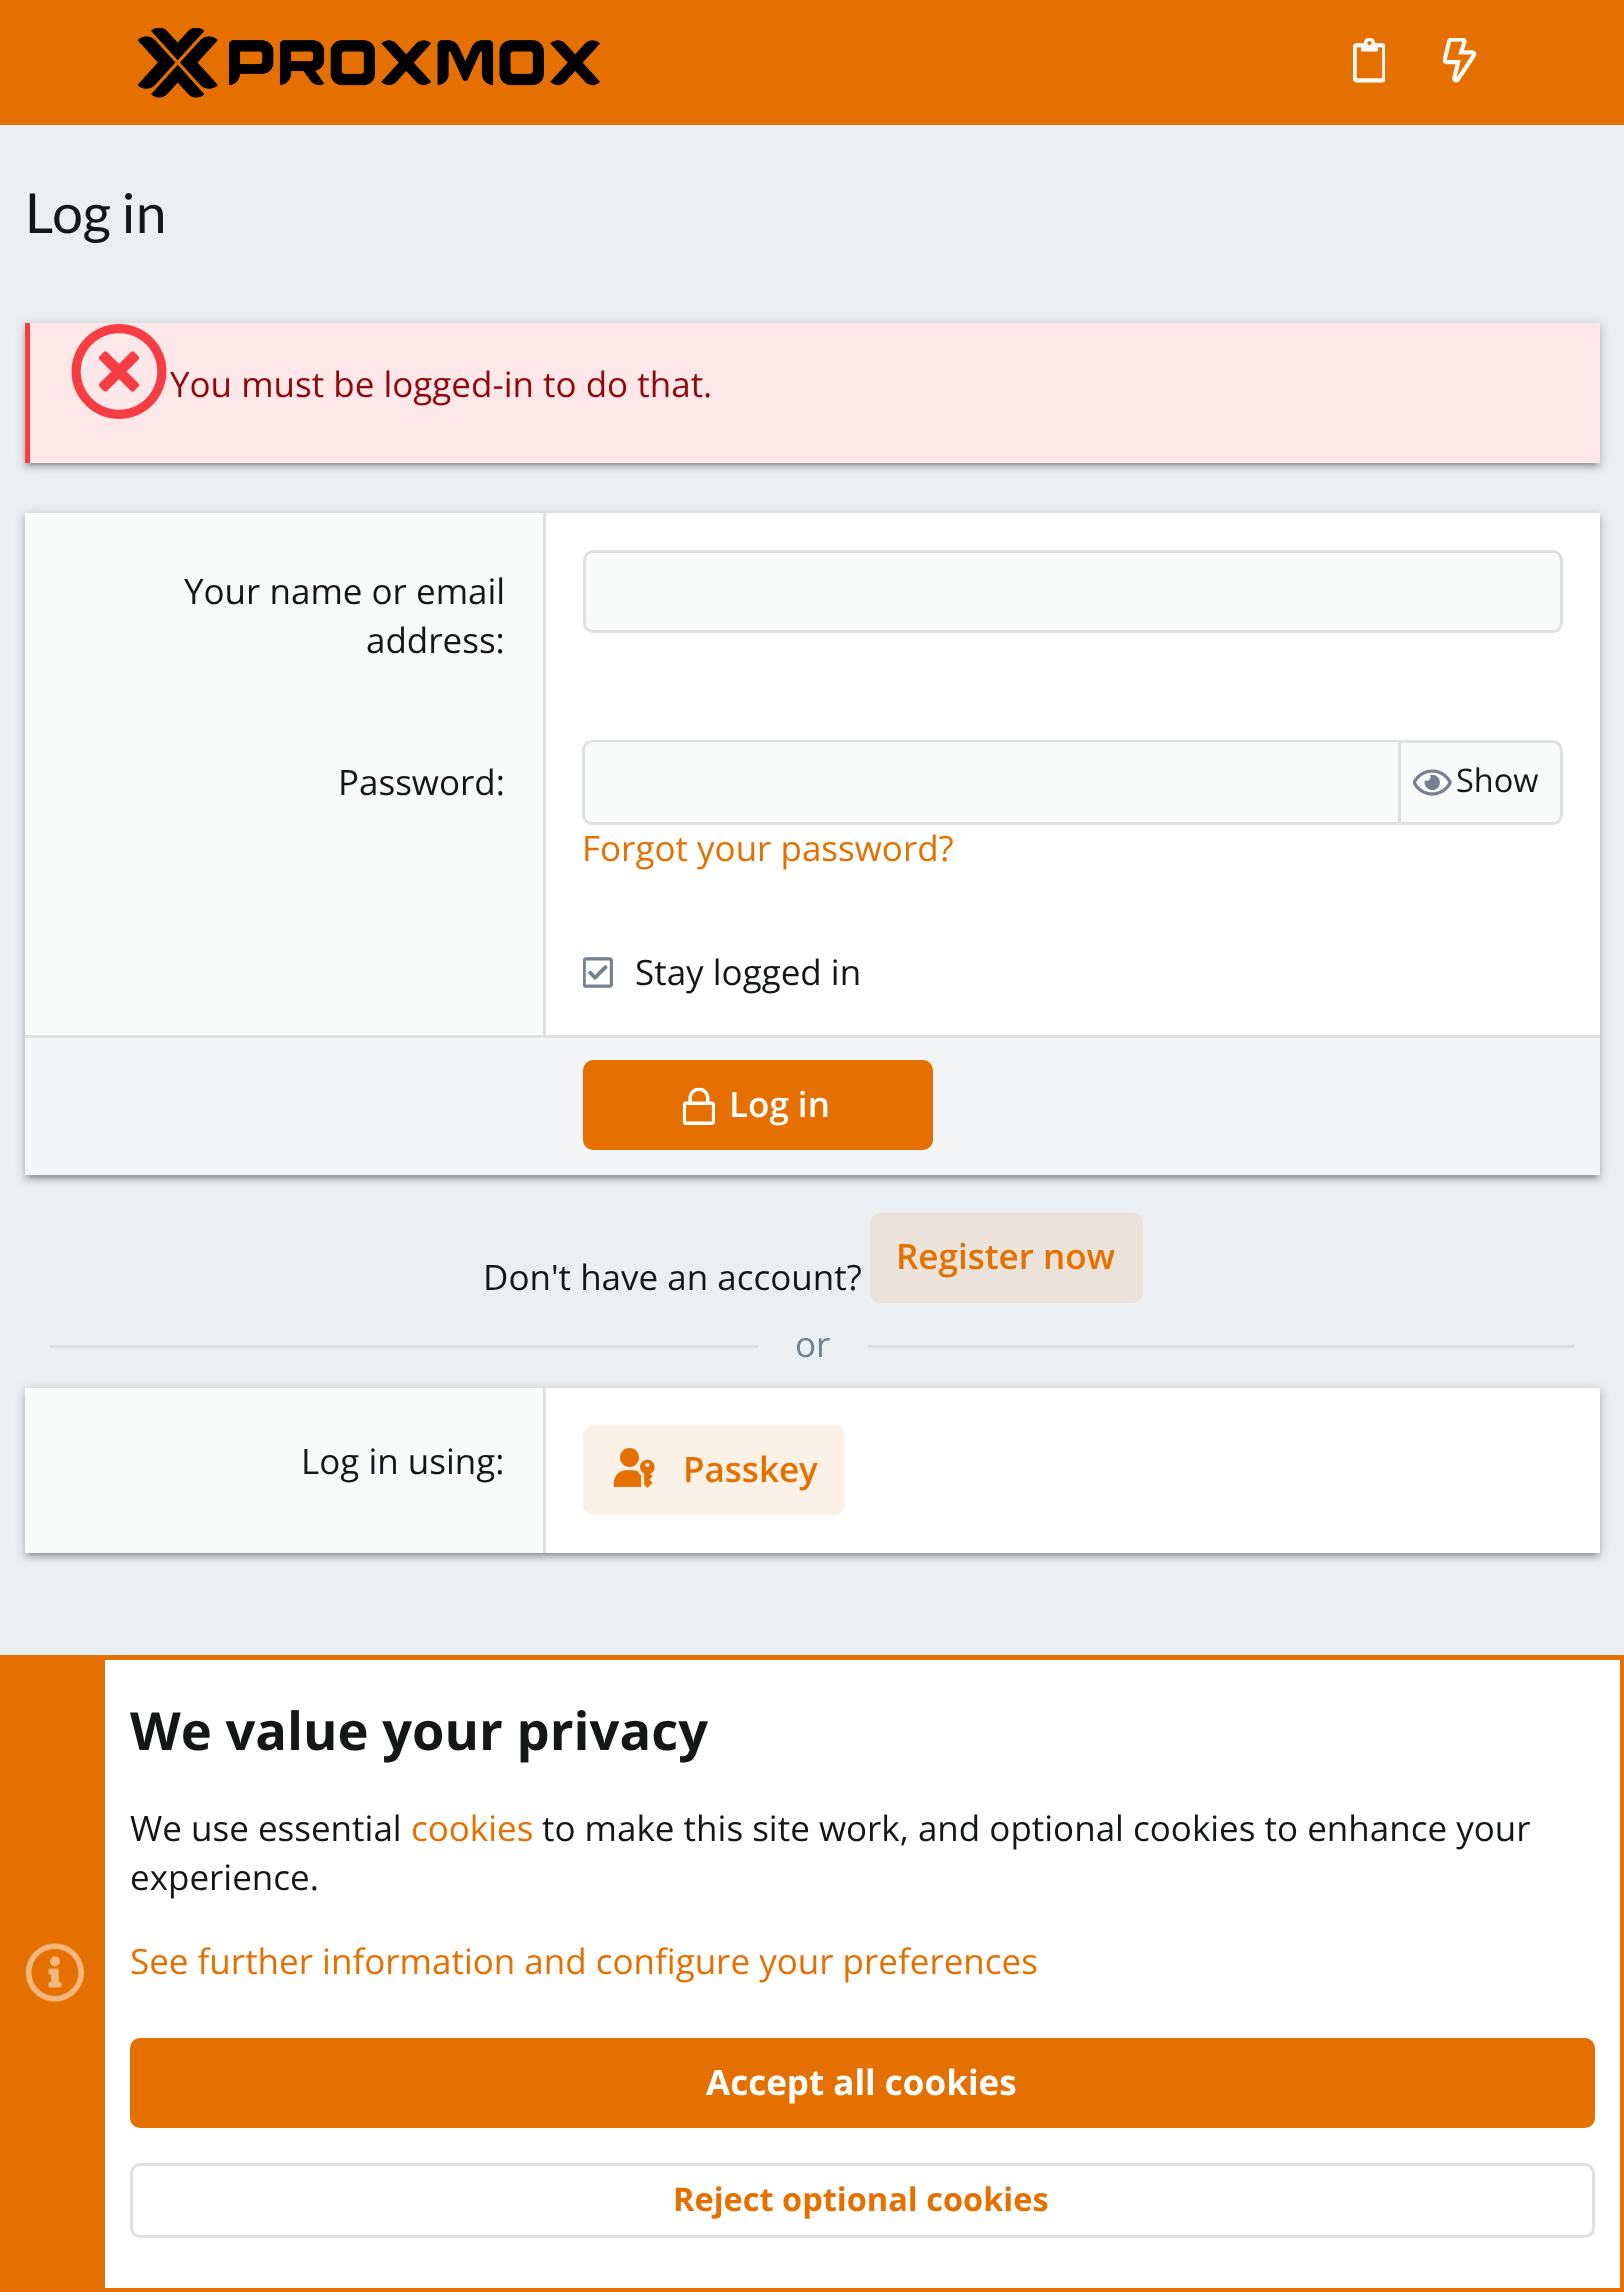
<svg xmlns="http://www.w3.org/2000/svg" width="1624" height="2292">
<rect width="100%" height="100%" fill="#eceff1"/>
<rect width="1624" height="125" fill="#e57000"/>
<image x="138" y="28" width="462" height="70" href="media/1.png"/>
<image x="1353" y="38" width="32" height="45" href="media/2.png"/>
<image x="1443" y="38" width="34" height="45" href="media/3.png"/>
<text x="25" y="233" style="font-family:Lato;font-size:55px;fill:#141618">Log in</text>
<rect x="25" y="325" width="1575" height="140" fill="#00000033" filter="blur(6px)"/>
<rect x="30" y="335" width="1565" height="130" fill="#0000001f" filter="blur(1px)"/>
<rect x="25" y="328" width="1575" height="140" fill="#00000024" filter="blur(2.5px)"/>
<rect x="30" y="323" width="1570" height="140" fill="#fee7e8"/>
<rect x="25" y="323" width="5" height="140" fill="#f53d43"/>
<image x="71" y="324" width="96" height="95" href="media/4.png"/>
<text x="170" y="397" style="font-family:Open Sans;font-size:35px;fill:#91080c">You must be logged-in to do that.</text>
<rect x="25" y="515" width="1575" height="663" fill="#00000033" filter="blur(6px)"/>
<rect x="30" y="525" width="1565" height="653" fill="#0000001f" filter="blur(1px)"/>
<rect x="25" y="518" width="1575" height="662" fill="#00000024" filter="blur(2.5px)"/>
<rect x="546" y="513" width="1054" height="522" fill="#fff"/>
<rect x="25" y="513" width="518" height="522" fill="#f9fafa"/>
<rect x="543" y="513" width="3" height="522" fill="#e0e0e0"/>
<text x="184" y="604" style="font-family:Open Sans;font-size:35px;fill:#141618">Your name or email</text>
<text x="366" y="653" style="font-family:Open Sans;font-size:35px;fill:#141618">address:</text>
<rect x="584.5" y="551.5" width="977" height="80" rx="8.5" fill="#f9fafa" stroke="#e0e0e0" stroke-width="3"/>
<text x="338" y="795" style="font-family:Open Sans;font-size:35px;fill:#141618">Password:</text>
<path d="M593 740h805v85h-805c-5.5 0-10-4.5-10-10v-65c0-5.5 4.5-10 10-10z" fill="#f9fafa"/>
<path d="M592 740h806v85h-806c-5 0-10-4-10-10v-65c0-6 5-10 10-10zm0 2h806v80h-806c-4 0-7-3-7-7v-65c0-4 3-8 7-8z" fill="#e0e0e0" fill-rule="evenodd"/>
<path d="M1399.5 741.5h153.5c4.5 0 8.5 4 8.5 8.5v65c0 4.5-4 8.5-8.5 8.5h-153.5z" fill="#f9fafa" stroke="#e0e0e0" stroke-width="3"/>
<image x="1413" y="769" width="39" height="27" href="media/5.png"/>
<text x="1456" y="792" style="font-family:Open Sans;font-size:32.5px;fill:#141618">Show</text>
<text x="582" y="861" style="font-family:Open Sans;font-size:35px;fill:#e57000">Forgot your password?</text>
<image x="583" y="957" width="30" height="31" href="media/6.png"/>
<text x="635" y="985" style="font-family:Open Sans;font-size:35px;fill:#141618">Stay logged in</text>
<rect x="25" y="1038" width="1575" height="137" fill="#f4f5f6"/>
<rect x="25" y="1035" width="1575" height="3" fill="#e0e0e0"/>
<rect x="583" y="1060" width="350" height="90" rx="10" fill="#e57000"/>
<image x="682" y="1087" width="33" height="38" href="media/7.png"/>
<text x="729" y="1117" style="font-family:Open Sans;font-size:35px;font-weight:600;fill:#fff">Log in</text>
<text x="483" y="1290" style="font-family:Open Sans;font-size:35px;fill:#141618">Don't have an account?</text>
<rect x="870" y="1213" width="273" height="90" rx="10" fill="#ebe2d9"/>
<text x="896" y="1269" style="font-family:Open Sans;font-size:35px;font-weight:600;fill:#e57000">Register now</text>
<rect x="50" y="1345" width="708" height="3" fill="#e0e0e0"/>
<text x="795" y="1357" style="font-family:Open Sans;font-size:35px;fill:#76818d">or</text>
<rect x="868" y="1345" width="707" height="3" fill="#e0e0e0"/>
<rect x="25" y="1390" width="1575" height="165" fill="#00000033" filter="blur(6px)"/>
<rect x="30" y="1400" width="1565" height="155" fill="#0000001f" filter="blur(1px)"/>
<rect x="25" y="1393" width="1575" height="165" fill="#00000024" filter="blur(2.5px)"/>
<rect x="546" y="1388" width="1054" height="165" fill="#fff"/>
<rect x="25" y="1388" width="518" height="165" fill="#f9fafa"/>
<rect x="543" y="1388" width="3" height="165" fill="#e0e0e0"/>
<text x="301" y="1474" style="font-family:Open Sans;font-size:35px;fill:#141618">Log in using:</text>
<rect x="583" y="1425" width="262" height="90" rx="10" fill="#fcf1e6"/>
<image x="613" y="1448" width="42" height="40" href="media/8.png"/>
<text x="683" y="1482" style="font-family:Open Sans;font-size:35px;font-weight:600;fill:#e57000">Passkey</text>
<rect x="105" y="1660" width="1515" height="628" fill="#fff"/>
<rect x="2.5" y="1657.5" width="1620" height="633" fill="none" stroke="#e57000" stroke-width="5"/>
<rect x="5" y="1660" width="100" height="628" fill="#e57000"/>
<image x="25" y="1943" width="59" height="59" href="media/9.png"/>
<text x="130" y="1750" style="font-family:Open Sans;font-size:52.5px;font-weight:bold;fill:#141618">We value your privacy</text>
<text x="130" y="1841" style="font-family:Open Sans;font-size:35px;fill:#141618">We use essential</text>
<text x="411" y="1841" style="font-family:Open Sans;font-size:35px;fill:#e57000">cookies</text>
<text x="542" y="1841" style="font-family:Open Sans;font-size:35px;fill:#141618">to make this site work, and optional cookies to enhance your</text>
<text x="130" y="1890" style="font-family:Open Sans;font-size:35px;fill:#141618">experience.</text>
<text x="130" y="1974" style="font-family:Open Sans;font-size:35px;fill:#e57000">See further information and configure your preferences</text>
<rect x="130" y="2038" width="1465" height="90" rx="10" fill="#e57000"/>
<text x="706" y="2095" style="font-family:Open Sans;font-size:35px;font-weight:bold;fill:#fff">Accept all cookies</text>
<rect x="131.5" y="2164.5" width="1462" height="72" rx="8.5" fill="none" stroke="#e0e0e0" stroke-width="3"/>
<text x="673" y="2211" style="font-family:Open Sans;font-size:32.5px;font-weight:bold;fill:#e57000">Reject optional cookies</text>
</svg>
